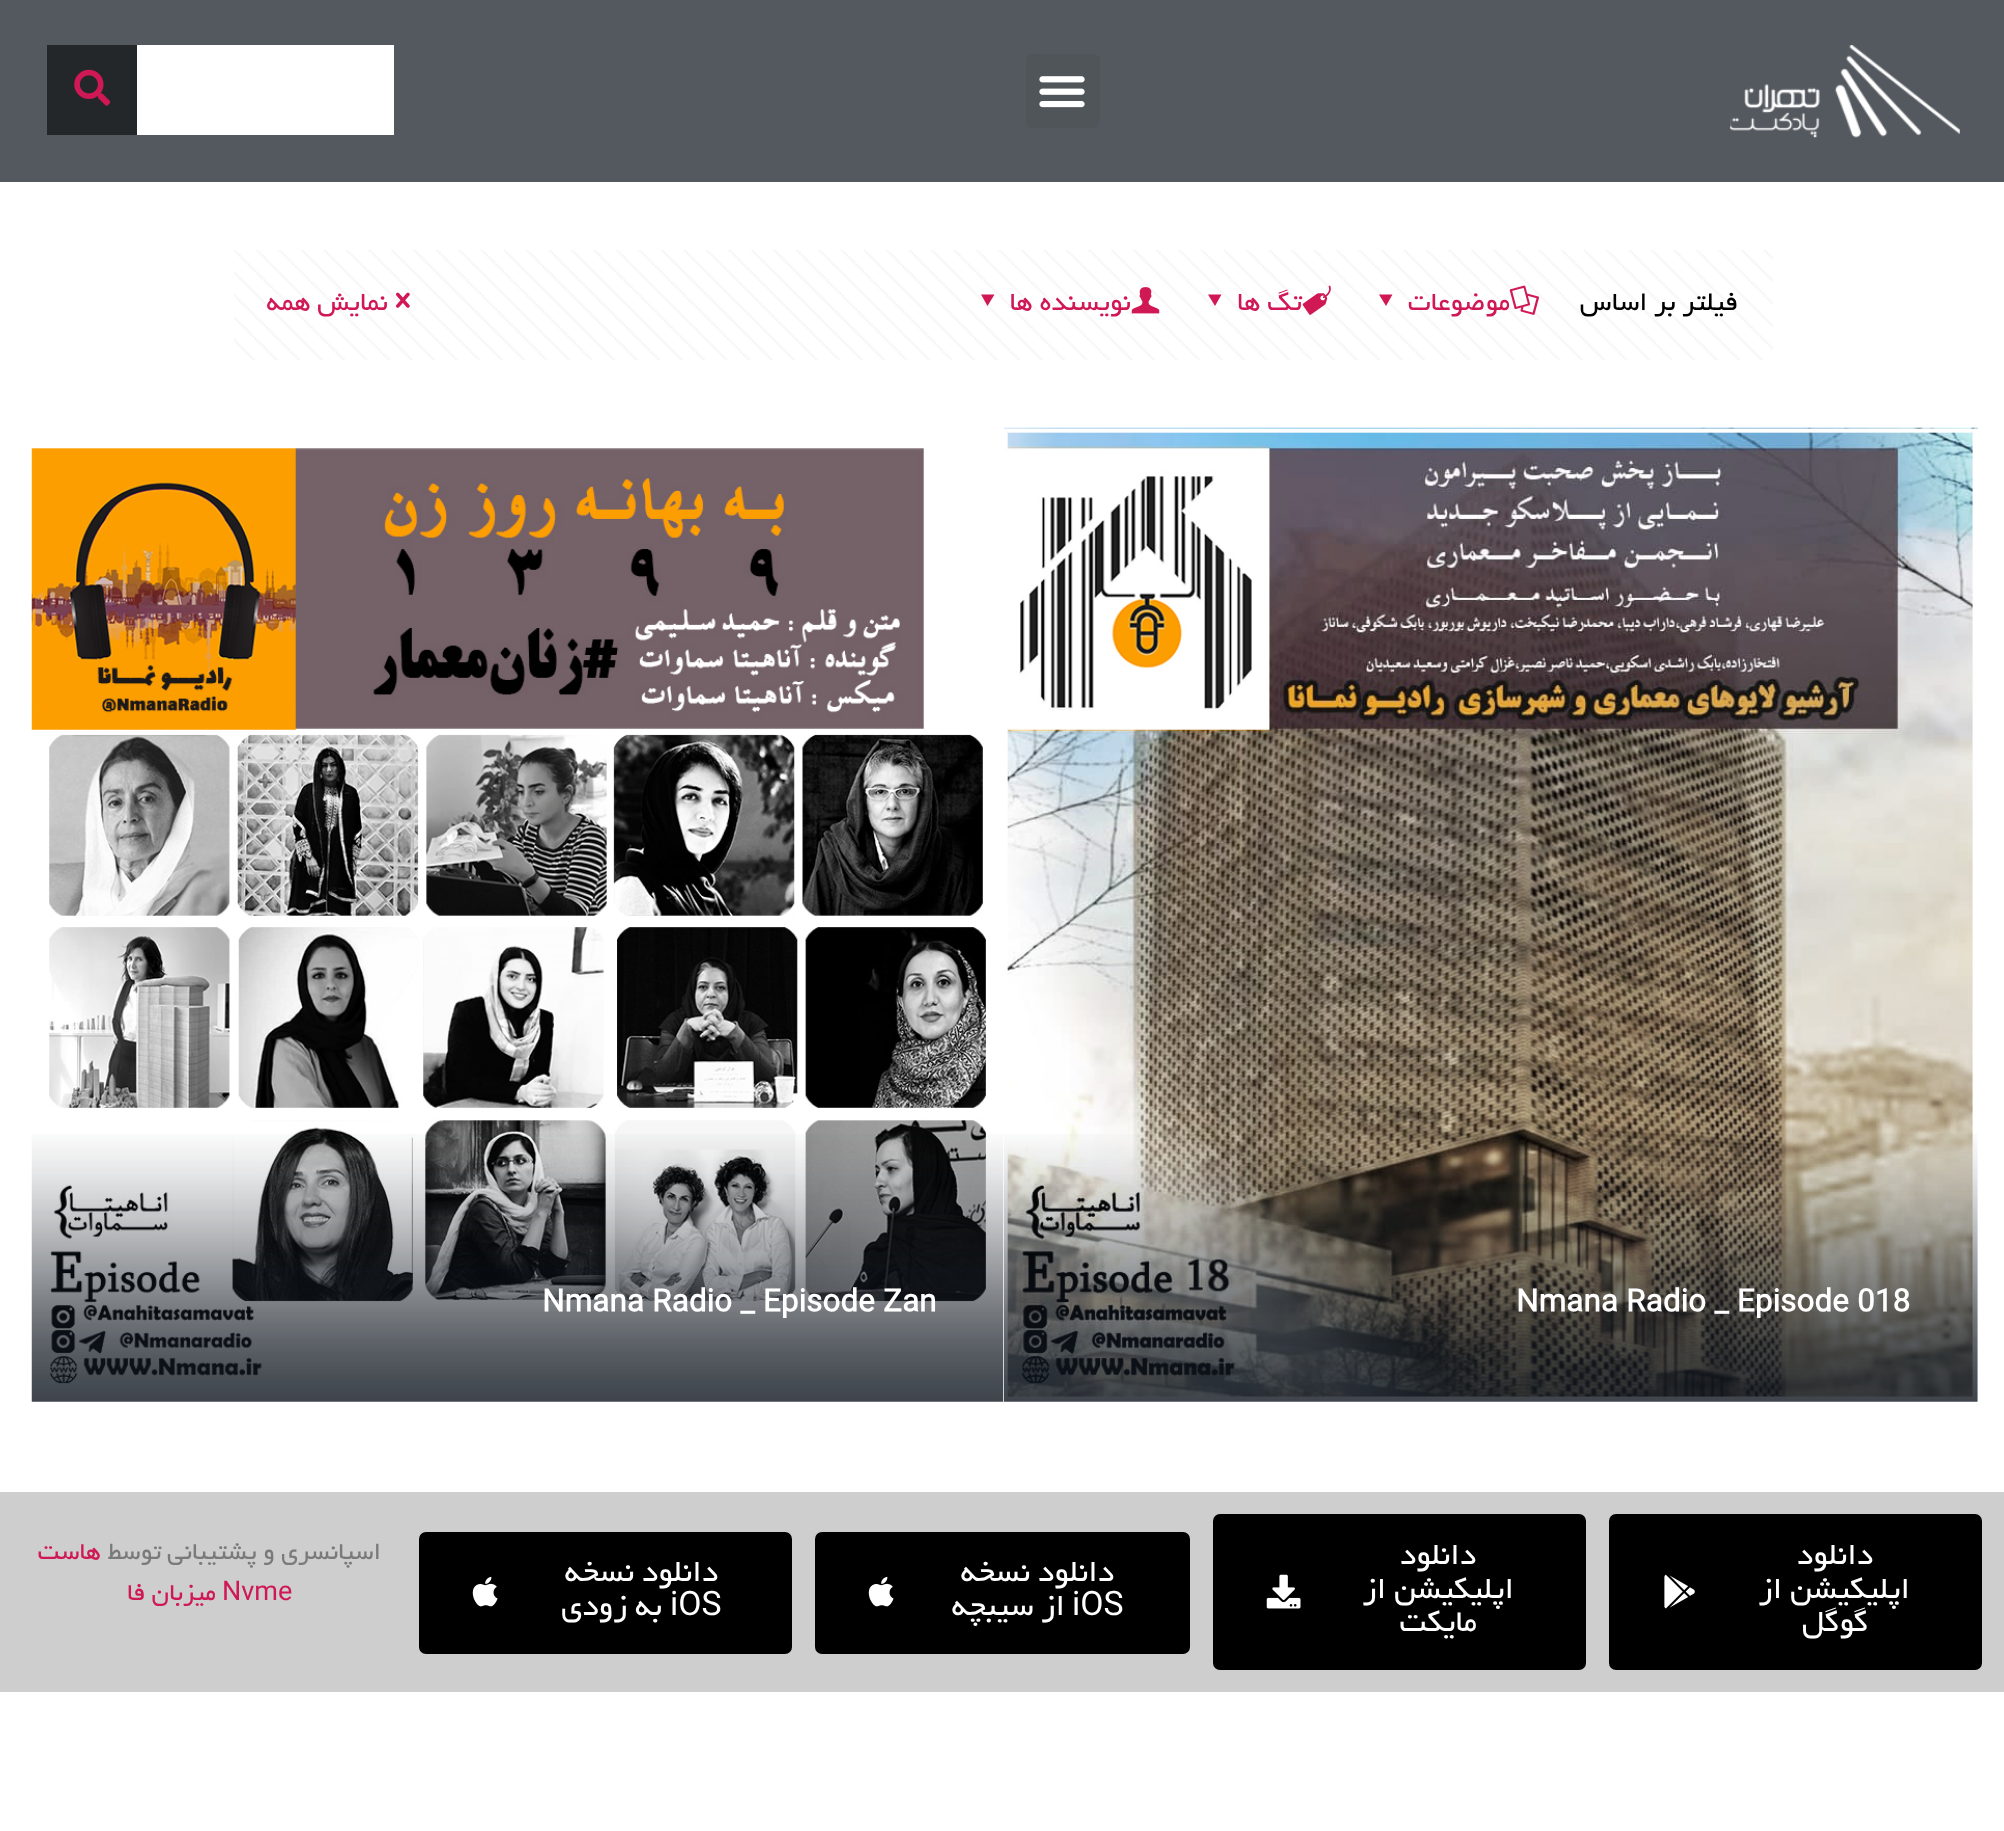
<svg xmlns="http://www.w3.org/2000/svg" width="2004" height="1831">
<rect width="100%" height="100%" fill="#fff"/>
<rect width="2004" height="182" fill="#54595f"/>
<image x="1730" y="45" width="230" height="93" href="media/1.png"/>
<rect x="1026" y="54" width="74" height="74" rx="7" fill="#50555a"/>
<image x="1039" y="76" width="46" height="32" href="media/2.png"/>
<rect x="137" y="45" width="257" height="90" fill="#fff"/>
<rect x="47" y="45" width="90" height="90" fill="#24272a"/>
<image x="74" y="69" width="37" height="37" href="media/3.png"/>
<image x="234" y="250" width="1539" height="110" href="media/4.png"/>
<text x="1738" y="310" style="font-family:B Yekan;font-size:29.25px;direction:rtl;fill:#000">فیلتر بر اساس</text>
<image x="1509" y="285" width="30" height="30" href="media/5.png"/>
<text x="1510" y="310" style="font-family:B Yekan;font-size:29.25px;direction:rtl;fill:#d01855">موضوعات</text>
<path d="M1392.5 294.5l-6.5 11.5l-7-11.5z" fill="#d01855"/>
<image x="1302" y="285" width="29" height="30" href="media/6.png"/>
<text x="1302" y="310" style="font-family:B Yekan;font-size:29.25px;direction:rtl;fill:#d01855">تگ ها</text>
<path d="M1221.5 294.5l-6.5 11.5l-7-11.5z" fill="#d01855"/>
<image x="1131" y="287" width="29" height="27" href="media/7.png"/>
<text x="1131" y="310" style="font-family:B Yekan;font-size:29.25px;direction:rtl;fill:#d01855">نویسنده ها</text>
<path d="M994.5 294.5l-7 11.5l-6.5-11.5z" fill="#d01855"/>
<image x="396" y="292" width="14" height="16" href="media/8.png"/>
<text x="388" y="310" style="font-family:B Yekan;font-size:29.25px;direction:rtl;fill:#d01855">نمایش همه</text>
<image x="1003" y="427" width="975" height="970" href="media/9.png"/>
<image x="1004" y="1134" width="974" height="268" href="media/10.png"/>
<text x="1516" y="1310" style="font-family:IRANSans;font-size:29.25px;font-weight:bold;fill:#fff">Nmana Radio _ Episode 018</text>
<rect x="1003" y="428" width="1" height="1" fill="#fff"/>
<image x="31" y="448" width="955" height="936" href="media/11.png"/>
<image x="31" y="1134" width="973" height="268" href="media/12.png"/>
<text x="542" y="1310" style="font-family:IRANSans;font-size:29.25px;font-weight:bold;fill:#fff">Nmana Radio _ Episode Zan</text>
<rect y="1492" width="2004" height="200" fill="#cecece"/>
<rect x="1609" y="1514" width="373" height="156" rx="7" fill="#000"/>
<text x="1873" y="1564" style="font-family:B Yekan;font-size:33.75px;direction:rtl;fill:#fff">دانلود</text>
<text x="1910" y="1598" style="font-family:B Yekan;font-size:33.75px;direction:rtl;fill:#fff">اپلیکیشن از</text>
<text x="1868" y="1631" style="font-family:B Yekan;font-size:33.75px;direction:rtl;fill:#fff">گوگل</text>
<image x="1664" y="1574" width="31" height="35" href="media/13.png"/>
<rect x="1213" y="1514" width="373" height="156" rx="7" fill="#000"/>
<text x="1476" y="1564" style="font-family:B Yekan;font-size:33.75px;direction:rtl;fill:#fff">دانلود</text>
<text x="1514" y="1598" style="font-family:B Yekan;font-size:33.75px;direction:rtl;fill:#fff">اپلیکیشن از</text>
<text x="1477" y="1631" style="font-family:B Yekan;font-size:33.75px;direction:rtl;fill:#fff">مایکت</text>
<image x="1266" y="1574" width="35" height="35" href="media/14.png"/>
<rect x="815" y="1532" width="375" height="122" rx="7" fill="#000"/>
<text x="1114" y="1581" style="font-family:B Yekan;font-size:33.75px;direction:rtl;fill:#fff">دانلود نسخه</text>
<text x="1072" y="1615" style="font-family:Roboto;font-size:33.75px;fill:#fff">iOS</text>
<text x="1065" y="1615" style="font-family:B Yekan;font-size:33.75px;direction:rtl;fill:#fff">از سیبچه</text>
<image x="868" y="1576" width="26" height="31" href="media/15.png"/>
<rect x="419" y="1532" width="373" height="122" rx="7" fill="#000"/>
<text x="718" y="1581" style="font-family:B Yekan;font-size:33.75px;direction:rtl;fill:#fff">دانلود نسخه</text>
<text x="670" y="1615" style="font-family:Roboto;font-size:33.75px;fill:#fff">iOS</text>
<text x="662" y="1615" style="font-family:B Yekan;font-size:33.75px;direction:rtl;fill:#fff">به زودی</text>
<image x="472" y="1576" width="26" height="31" href="media/15.png"/>
<text x="381" y="1559" style="font-family:B Yekan;font-size:27px;direction:rtl;fill:#7a7a7a">اسپانسری و پشتیبانی توسط</text>
<text x="101" y="1559" style="font-family:B Yekan;font-size:27px;direction:rtl;fill:#d01855">هاست</text>
<text x="222" y="1600" style="font-family:Roboto;font-size:27px;fill:#d01855">Nvme</text>
<text x="216" y="1600" style="font-family:B Yekan;font-size:27px;direction:rtl;fill:#d01855">میزبان فا</text>
</svg>
